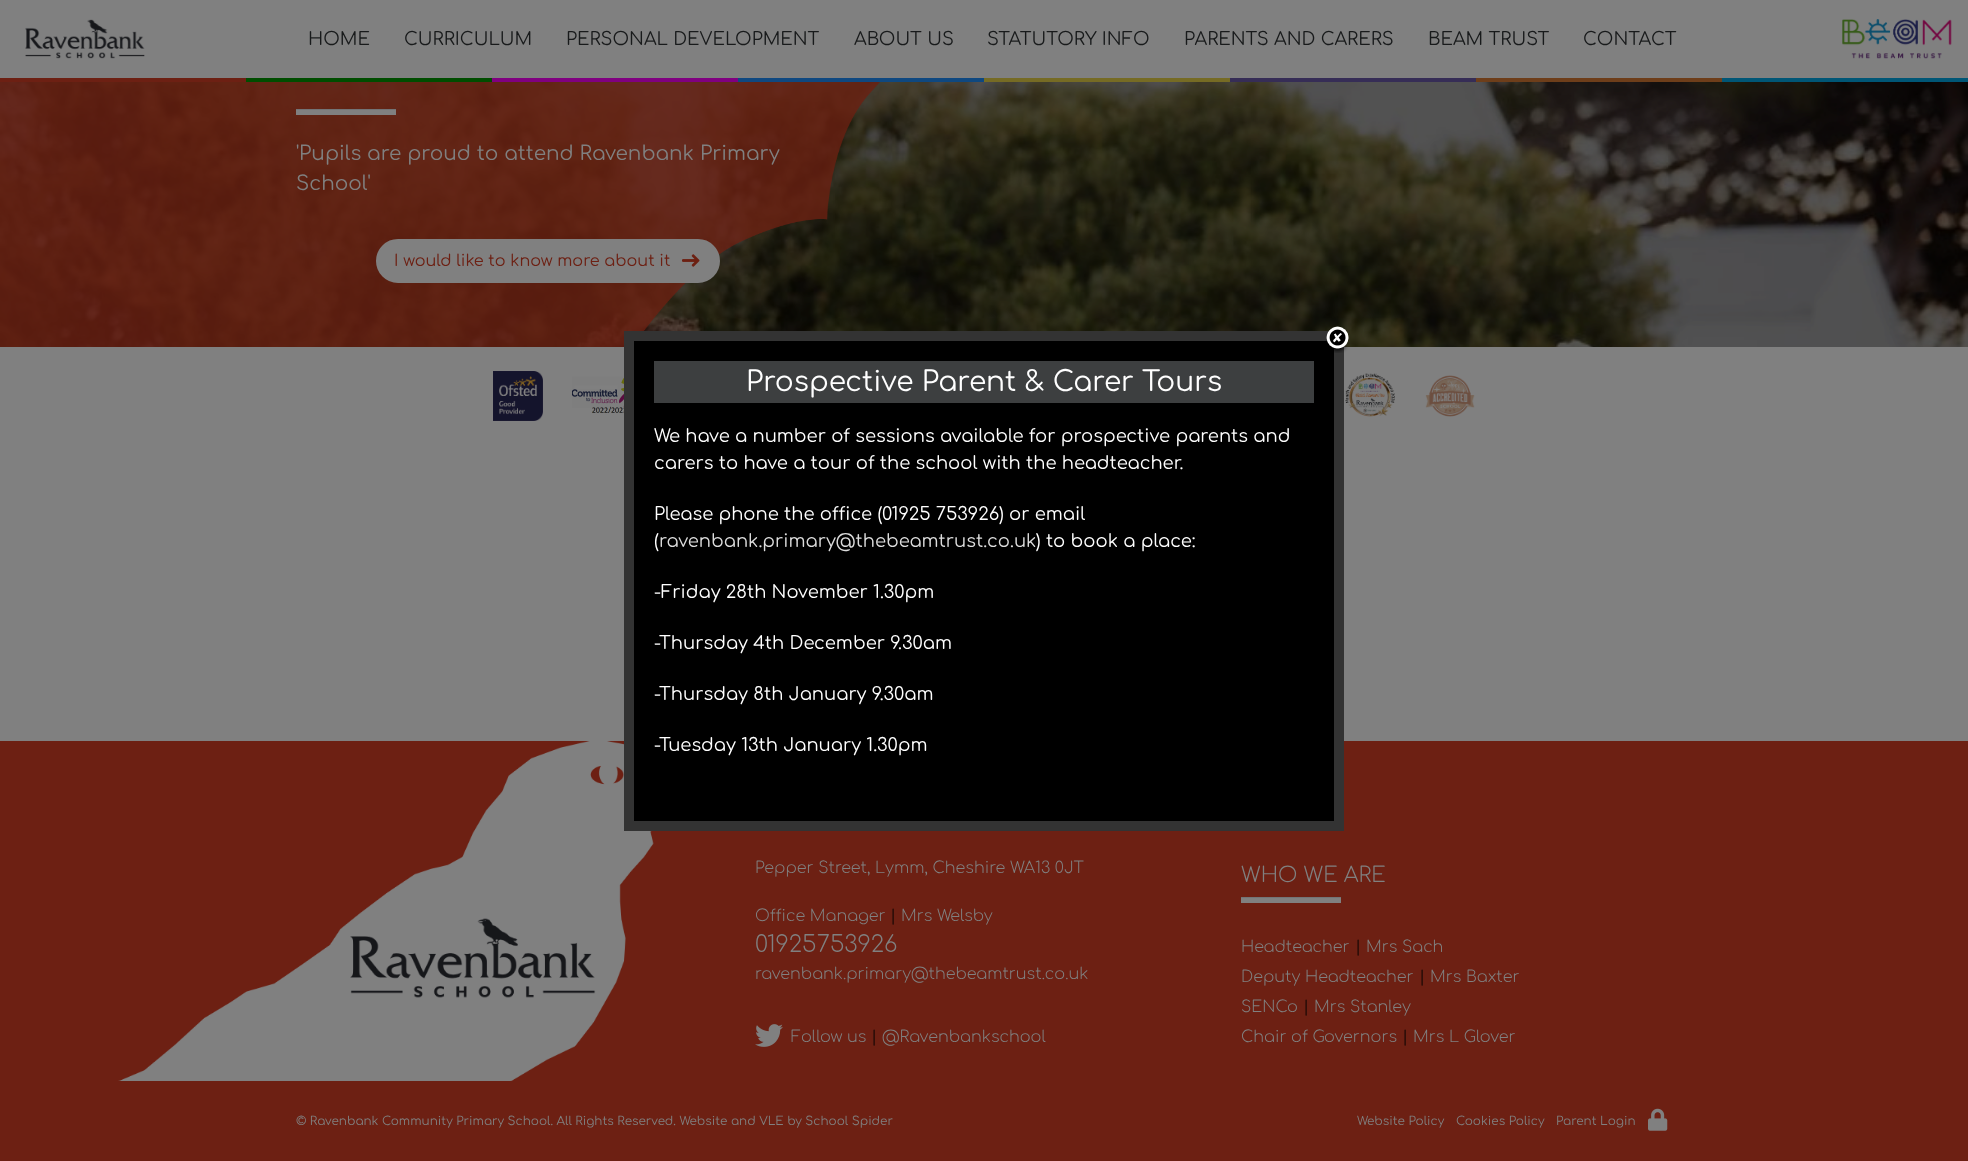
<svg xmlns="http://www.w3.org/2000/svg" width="1968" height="1161">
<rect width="100%" height="100%" fill="#808080"/>
<image x="25" y="19" width="120" height="40" href="media/1.png"/>
<text x="308" y="45" style="font-family:Comfortaa;font-size:18px;fill:#181a1b">HOME</text>
<text x="404" y="45" style="font-family:Comfortaa;font-size:18px;fill:#181a1b">CURRICULUM</text>
<text x="566" y="45" style="font-family:Comfortaa;font-size:18px;fill:#181a1b">PERSONAL DEVELOPMENT</text>
<text x="854" y="45" style="font-family:Comfortaa;font-size:18px;fill:#181a1b">ABOUT US</text>
<text x="987" y="45" style="font-family:Comfortaa;font-size:18px;fill:#181a1b">STATUTORY INFO</text>
<text x="1184" y="45" style="font-family:Comfortaa;font-size:18px;fill:#181a1b">PARENTS AND CARERS</text>
<text x="1428" y="45" style="font-family:Comfortaa;font-size:18px;fill:#181a1b">BEAM TRUST</text>
<text x="1583" y="45" style="font-family:Comfortaa;font-size:18px;fill:#181a1b">CONTACT</text>
<image x="1842" y="19" width="110" height="40" href="media/2.png"/>
<rect y="78" width="246" height="4" fill="#6d2013"/>
<rect x="246" y="78" width="246" height="4" fill="#004d00"/>
<rect x="492" y="78" width="246" height="4" fill="#800080"/>
<rect x="738" y="78" width="246" height="4" fill="#0f4880"/>
<rect x="984" y="78" width="246" height="4" fill="#766b24"/>
<rect x="1230" y="78" width="246" height="4" fill="#362d56"/>
<rect x="1476" y="78" width="246" height="4" fill="#6e3e1a"/>
<rect x="1722" y="78" width="246" height="4" fill="#005676"/>
<image x="0" y="82" width="1968" height="265" href="media/3.png"/>
<rect y="82" width="160" height="265" fill="#6d2013cc"/>
<image x="160" y="82" width="720" height="265" href="media/4.png"/>
<rect x="296" y="110" width="100" height="5" fill="#808080"/>
<rect x="296" y="109" width="100" height="1" fill="#737476"/>
<text x="296" y="160" style="font-family:Comfortaa;font-size:20px;fill:#808080">'Pupils are proud to attend Ravenbank Primary</text>
<text x="296" y="190" style="font-family:Comfortaa;font-size:20px;fill:#808080">School'</text>
<rect x="377" y="240" width="342" height="42" rx="21" fill="#808080" stroke="#808080" stroke-width="2"/>
<text x="394" y="266" style="font-family:Comfortaa;font-size:16px;fill:#6d2013">I would like to know more about it</text>
<image x="682" y="254" width="18" height="13" href="media/5.png"/>
<rect y="741" width="1968" height="420" fill="#6d2013"/>
<image x="118" y="741" width="536" height="340" href="media/11.png"/>
<rect x="629" y="336" width="710" height="490" fill="#000" stroke="#333" stroke-width="10"/>
<image x="1326" y="326" width="23" height="27" href="media/6.png"/>
<rect x="654" y="361" width="660" height="42" fill="#3d3f40"/>
<text x="746" y="391" style="font-family:Comfortaa;font-size:28px;fill:#fff">Prospective Parent &amp; Carer Tours</text>
<text x="654" y="442" style="font-family:Comfortaa;font-size:18px;fill:#fff">We have a number of sessions available for prospective parents and</text>
<text x="654" y="469" style="font-family:Comfortaa;font-size:18px;fill:#fff">carers to have a tour of the school with the headteacher.</text>
<text x="654" y="520" style="font-family:Comfortaa;font-size:18px;fill:#fff">Please phone the office (01925 753926) or email</text>
<text x="654" y="547" style="font-family:Comfortaa;font-size:18px;fill:#fff">(</text>
<text x="659" y="547" style="font-family:Comfortaa;font-size:18px;fill:#ddd">ravenbank.primary@thebeamtrust.co.uk</text>
<text x="1036" y="547" style="font-family:Comfortaa;font-size:18px;fill:#fff">) to book a place:</text>
<text x="654" y="598" style="font-family:Comfortaa;font-size:18px;fill:#fff">-Friday 28th November 1.30pm</text>
<text x="654" y="649" style="font-family:Comfortaa;font-size:18px;fill:#fff">-Thursday 4th December 9.30am</text>
<text x="654" y="700" style="font-family:Comfortaa;font-size:18px;fill:#fff">-Thursday 8th January 9.30am</text>
<text x="654" y="751" style="font-family:Comfortaa;font-size:18px;fill:#fff">-Tuesday 13th January 1.30pm</text>
<image x="493" y="371" width="50" height="50" href="media/7.png"/>
<image x="572" y="376" width="52" height="37" href="media/8.png"/>
<image x="1345" y="373" width="50" height="44" href="media/9.png"/>
<image x="1425" y="375" width="50" height="42" href="media/10.png"/>
<image x="350" y="918" width="246" height="80" href="media/12.png"/>
<text x="755" y="873" style="font-family:Comfortaa;font-size:16px;font-weight:300;fill:#808080">Pepper Street, Lymm, Cheshire WA13 0JT</text>
<text x="755" y="921" style="font-family:Comfortaa;font-size:16px;font-weight:300;fill:#808080">Office Manager</text>
<text x="890" y="921" style="font-family:Comfortaa;font-size:16px;font-weight:300;fill:#000">|</text>
<text x="901" y="921" style="font-family:Comfortaa;font-size:16px;font-weight:300;fill:#808080">Mrs Welsby</text>
<text x="755" y="952" style="font-family:Comfortaa;font-size:23px;font-weight:300;fill:#808080">01925753926</text>
<text x="755" y="979" style="font-family:Comfortaa;font-size:16px;font-weight:300;fill:#808080">ravenbank.primary@thebeamtrust.co.uk</text>
<image x="755" y="1024" width="28" height="23" href="media/13.png"/>
<text x="791" y="1042" style="font-family:Comfortaa;font-size:16px;font-weight:300;fill:#808080">Follow us</text>
<text x="871" y="1042" style="font-family:Comfortaa;font-size:16px;font-weight:300;fill:#000">|</text>
<text x="882" y="1042" style="font-family:Comfortaa;font-size:16px;font-weight:300;fill:#808080">@Ravenbankschool</text>
<text x="1241" y="882" style="font-family:Comfortaa;font-size:21px;font-weight:300;fill:#808080">WHO WE ARE</text>
<rect x="1241" y="898" width="100" height="5" fill="#808080"/>
<rect x="1241" y="897" width="100" height="1" fill="#737476"/>
<text x="1241" y="952" style="font-family:Comfortaa;font-size:16px;font-weight:300;fill:#808080">Headteacher</text>
<text x="1355" y="952" style="font-family:Comfortaa;font-size:16px;font-weight:300;fill:#000">|</text>
<text x="1366" y="952" style="font-family:Comfortaa;font-size:16px;font-weight:300;fill:#808080">Mrs Sach</text>
<text x="1241" y="982" style="font-family:Comfortaa;font-size:16px;font-weight:300;fill:#808080">Deputy Headteacher</text>
<text x="1419" y="982" style="font-family:Comfortaa;font-size:16px;font-weight:300;fill:#000">|</text>
<text x="1430" y="982" style="font-family:Comfortaa;font-size:16px;font-weight:300;fill:#808080">Mrs Baxter</text>
<text x="1241" y="1012" style="font-family:Comfortaa;font-size:16px;font-weight:300;fill:#808080">SENCo</text>
<text x="1303" y="1012" style="font-family:Comfortaa;font-size:16px;font-weight:300;fill:#000">|</text>
<text x="1314" y="1012" style="font-family:Comfortaa;font-size:16px;font-weight:300;fill:#808080">Mrs Stanley</text>
<text x="1241" y="1042" style="font-family:Comfortaa;font-size:16px;font-weight:300;fill:#808080">Chair of Governors</text>
<text x="1402" y="1042" style="font-family:Comfortaa;font-size:16px;font-weight:300;fill:#000">|</text>
<text x="1413" y="1042" style="font-family:Comfortaa;font-size:16px;font-weight:300;fill:#808080">Mrs L Glover</text>
<text x="296" y="1125" style="font-family:Comfortaa;font-size:12px;fill:#808080">© Ravenbank Community Primary School. All Rights Reserved. Website and VLE by School Spider</text>
<text x="1357" y="1125" style="font-family:Comfortaa;font-size:12px;fill:#808080">Website Policy</text>
<text x="1456" y="1125" style="font-family:Comfortaa;font-size:12px;fill:#808080">Cookies Policy</text>
<text x="1556" y="1125" style="font-family:Comfortaa;font-size:12px;fill:#808080">Parent Login</text>
<image x="1648" y="1108" width="20" height="23" href="media/14.png"/>
</svg>
